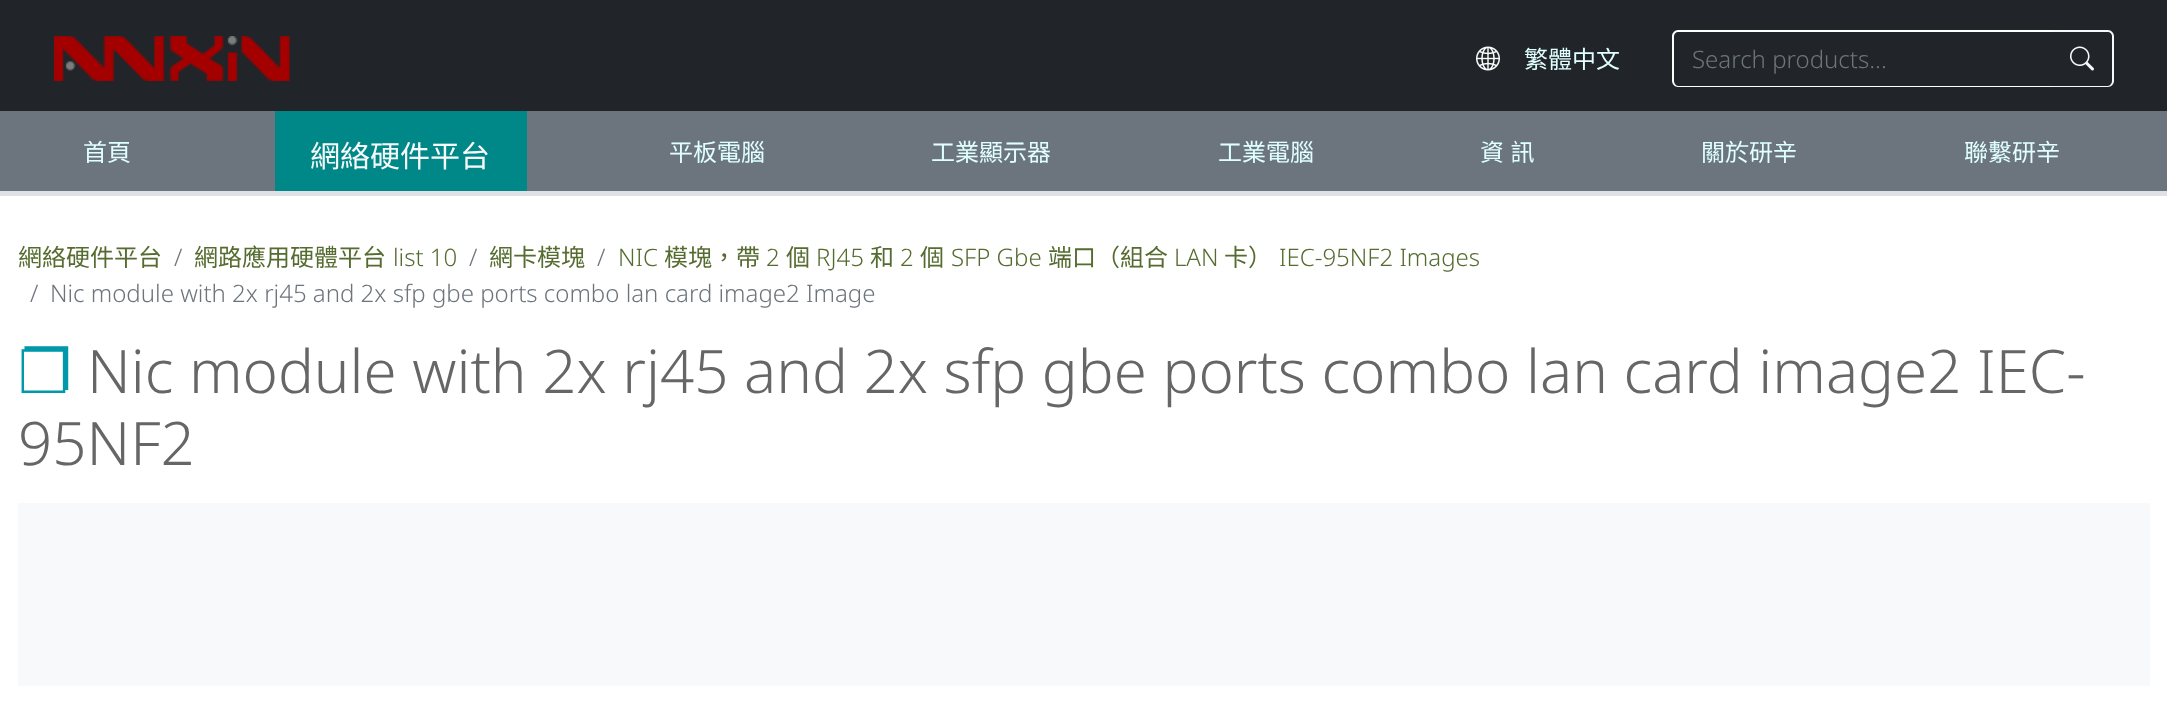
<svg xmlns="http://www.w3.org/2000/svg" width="2167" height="706">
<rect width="100%" height="100%" fill="#fff"/>
<rect width="2167" height="111" fill="#212529"/>
<image x="54" y="36" width="236" height="45" href="media/1.png"/>
<image x="1476" y="46" width="24" height="25" href="media/2.png"/>
<text x="1524" y="68" style="font-family:Noto Sans CJK HK;font-size:24px;fill:#e0ffff">繁體中文</text>
<path d="M1678 30h376v57h-376c-3 0-6-3-6-6v-45c0-3 3-6 6-6zm0 2h376v54h-376c-2 0-4-3-4-5v-45c0-2 2-4 4-4z" fill="#fff" fill-rule="evenodd"/>
<text x="1692" y="68" style="font-family:Noto Sans;font-size:24px;font-weight:300;fill:#6c757d">Search products...</text>
<path d="M2052 30h56c3 0 6 3 6 6v45c0 3-3 6-6 6h-56zm0 2h56c2 0 4 2 4 4v45c0 2-2 5-4 5h-56z" fill="#f8f9fa" fill-rule="evenodd"/>
<image x="2070" y="46" width="24" height="25" href="media/3.png"/>
<rect y="111" width="2167" height="80" fill="#6c757d"/>
<rect y="191" width="2167" height="5" fill="#dee2e6"/>
<text x="83" y="161" style="font-family:Noto Sans CJK HK;font-size:24px;fill:#e0ffff">首頁</text>
<rect x="275" y="111" width="252" height="80" fill="#088"/>
<text x="310" y="167" style="font-family:Noto Sans CJK HK;font-size:30px;fill:#f8f9fa">網絡硬件平台</text>
<text x="669" y="161" style="font-family:Noto Sans CJK HK;font-size:24px;fill:#e0ffff">平板電腦</text>
<text x="931" y="161" style="font-family:Noto Sans CJK HK;font-size:24px;fill:#e0ffff">工業顯示器</text>
<text x="1218" y="161" style="font-family:Noto Sans CJK HK;font-size:24px;fill:#e0ffff">工業電腦</text>
<text x="1480" y="161" word-spacing="1" style="font-family:Noto Sans CJK HK;font-size:24px;fill:#e0ffff">資 訊</text>
<text x="1701" y="161" style="font-family:Noto Sans CJK HK;font-size:24px;fill:#e0ffff">關於研辛</text>
<text x="1964" y="161" style="font-family:Noto Sans CJK HK;font-size:24px;fill:#e0ffff">聯繫研辛</text>
<text x="18" y="266" style="font-family:Noto Sans CJK HK;font-size:24px;fill:#556b2f">網絡硬件平台</text>
<text x="174" y="266" style="font-family:Noto Sans;font-size:24px;font-weight:300;fill:#6c757d">/</text>
<text x="194" y="266" style="font-family:Noto Sans CJK HK;font-size:24px;fill:#556b2f">網路應用硬體平台</text>
<text x="393" y="266" style="font-family:Noto Sans;font-size:24px;font-weight:300;fill:#556b2f">list 10</text>
<text x="469" y="266" style="font-family:Noto Sans;font-size:24px;font-weight:300;fill:#6c757d">/</text>
<text x="489" y="266" style="font-family:Noto Sans CJK HK;font-size:24px;fill:#556b2f">網卡模塊</text>
<text x="597" y="266" style="font-family:Noto Sans;font-size:24px;font-weight:300;fill:#6c757d">/</text>
<text x="618" y="266" style="font-family:Noto Sans;font-size:24px;font-weight:300;fill:#556b2f">NIC</text>
<text x="664" y="266" style="font-family:Noto Sans CJK HK;font-size:24px;fill:#556b2f">模塊，帶</text>
<text x="766" y="266" style="font-family:Noto Sans;font-size:24px;font-weight:300;fill:#556b2f">2</text>
<text x="786" y="266" style="font-family:Noto Sans CJK HK;font-size:24px;fill:#556b2f">個</text>
<text x="816" y="266" style="font-family:Noto Sans;font-size:24px;font-weight:300;fill:#556b2f">RJ45</text>
<text x="870" y="266" style="font-family:Noto Sans CJK HK;font-size:24px;fill:#556b2f">和</text>
<text x="900" y="266" style="font-family:Noto Sans;font-size:24px;font-weight:300;fill:#556b2f">2</text>
<text x="920" y="266" style="font-family:Noto Sans CJK HK;font-size:24px;fill:#556b2f">個</text>
<text x="951" y="266" style="font-family:Noto Sans;font-size:24px;font-weight:300;fill:#556b2f">SFP Gbe</text>
<text x="1048" y="266" style="font-family:Noto Sans CJK HK;font-size:24px;fill:#556b2f">端口（組合</text>
<text x="1174" y="266" style="font-family:Noto Sans;font-size:24px;font-weight:300;fill:#556b2f">LAN</text>
<text x="1224" y="266" style="font-family:Noto Sans CJK HK;font-size:24px;fill:#556b2f">卡）</text>
<text x="1279" y="266" style="font-family:Noto Sans;font-size:24px;font-weight:300;fill:#556b2f">IEC-95NF2 Images</text>
<text x="30" y="302" style="font-family:Noto Sans;font-size:24px;font-weight:300;fill:#6c757d">/</text>
<text x="50" y="302" style="font-family:Noto Sans;font-size:24px;font-weight:300;fill:#6c757d">Nic module with 2x rj45 and 2x sfp gbe ports combo lan card image2 Image</text>
<text x="18" y="393" style="font-family:Noto Sans;font-size:60px;font-weight:300;fill:#09a">❐</text>
<text x="87" y="393" style="font-family:Noto Sans;font-size:60px;font-weight:300;fill:#666">Nic module with 2x rj45 and 2x sfp gbe ports combo lan card image2 IEC-</text>
<text x="18" y="465" style="font-family:Noto Sans;font-size:60px;font-weight:300;fill:#666">95NF2</text>
<rect x="18" y="503" width="2132" height="183" fill="#f8f9fa"/>
</svg>
